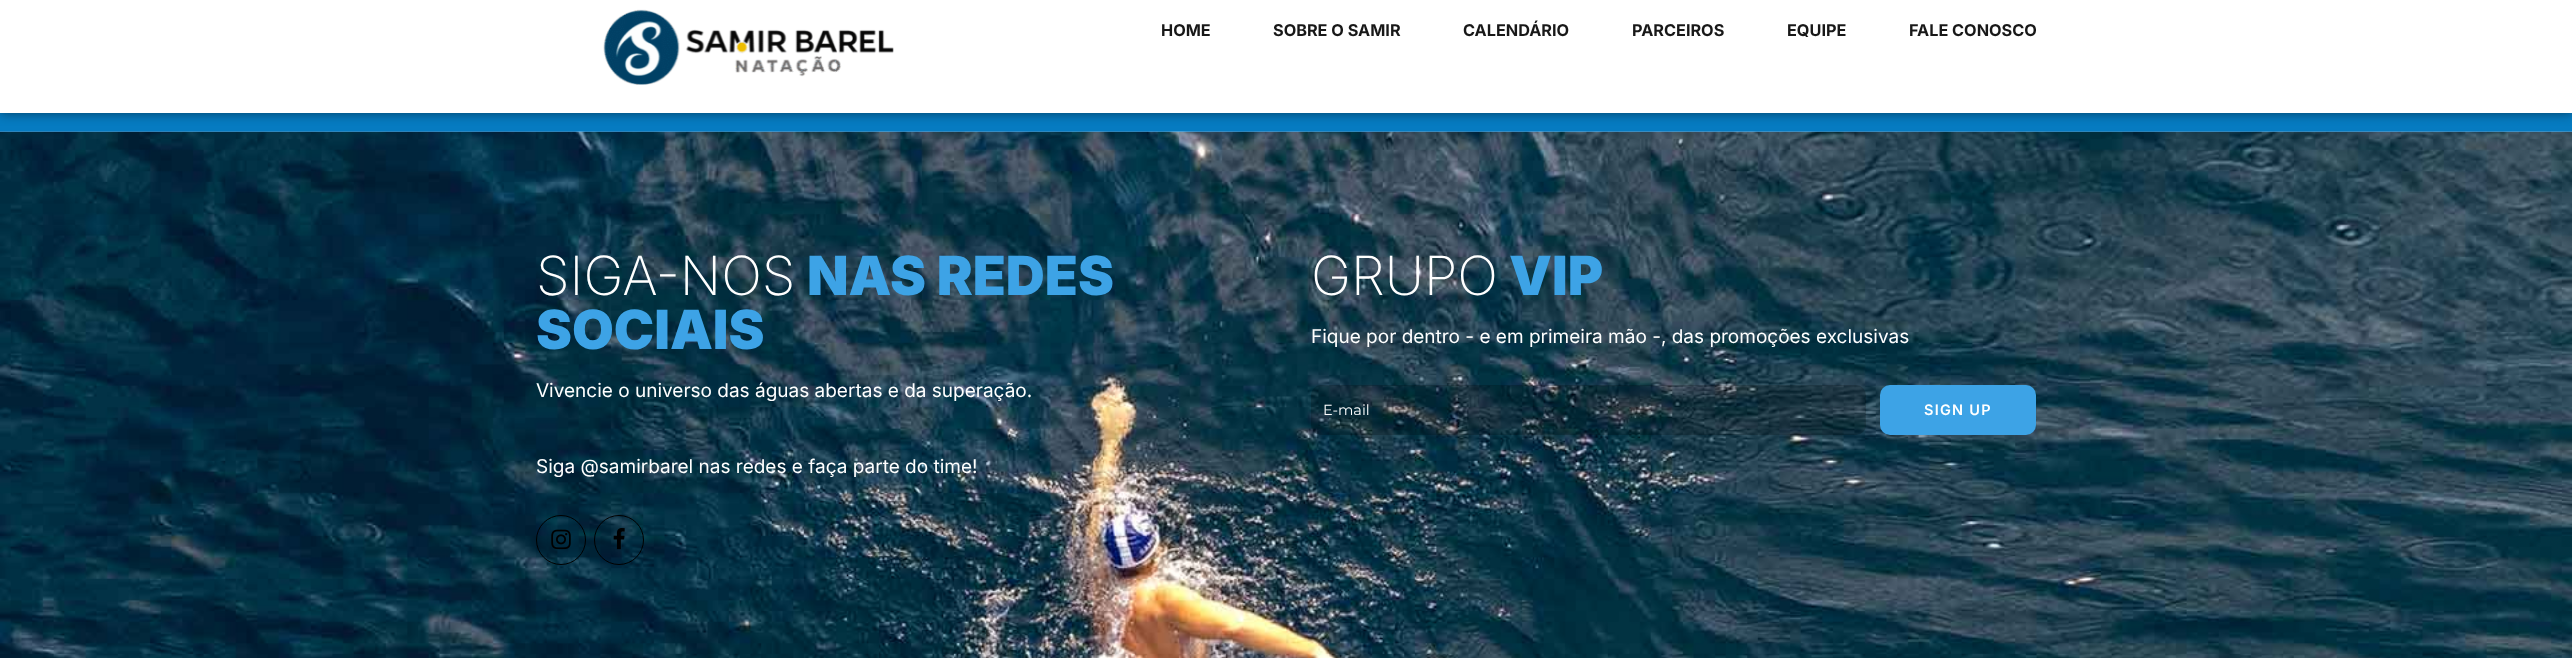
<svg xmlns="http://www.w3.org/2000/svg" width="2572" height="658">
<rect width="100%" height="100%" fill="#067bc1"/>
<rect y="131" width="2572" height="1" fill="#3da3e6"/>
<image x="0" y="131" width="2572" height="527" href="media/2.png"/>
<rect width="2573" height="113" fill="#00000080" filter="blur(6px)"/>
<rect width="2572" height="113" fill="#fff"/>
<image x="603" y="9" width="291" height="76" href="media/1.png"/>
<text x="1161" y="36" style="font-family:Inter;font-size:16.25px;font-weight:bold;fill:#181818">HOME</text>
<text x="1273" y="36" style="font-family:Inter;font-size:16.25px;font-weight:bold;fill:#181818">SOBRE O SAMIR</text>
<text x="1463" y="36" style="font-family:Inter;font-size:16.25px;font-weight:bold;fill:#181818">CALENDÁRIO</text>
<text x="1632" y="36" style="font-family:Inter;font-size:16.25px;font-weight:bold;fill:#181818">PARCEIROS</text>
<text x="1787" y="36" style="font-family:Inter;font-size:16.25px;font-weight:bold;fill:#181818">EQUIPE</text>
<text x="1909" y="36" style="font-family:Inter;font-size:16.25px;font-weight:bold;fill:#181818">FALE CONOSCO</text>
<text x="536" y="295" style="font-family:Inter;font-size:54px;font-weight:200;fill:#fff">SIGA-NOS</text>
<text x="807" y="295" style="font-family:Inter;font-size:54px;font-weight:900;fill:#3da3e6">NAS REDES</text>
<text x="536" y="349" style="font-family:Inter;font-size:54px;font-weight:900;fill:#3da3e6">SOCIAIS</text>
<text x="536" y="397" style="font-family:Inter;font-size:19px;fill:#fff">Vivencie o universo das águas abertas e da superação.</text>
<text x="536" y="473" style="font-family:Inter;font-size:19px;fill:#fff">Siga @samirbarel nas redes e faça parte do time!</text>
<circle cx="561" cy="540" r="24.5" fill="none" stroke="#000"/>
<image x="551" y="529" width="20" height="21" href="media/3.png"/>
<circle cx="619" cy="540" r="24.5" fill="none" stroke="#000"/>
<image x="613" y="528" width="12" height="22" href="media/4.png"/>
<text x="1311" y="295" style="font-family:Inter;font-size:54px;font-weight:200;fill:#fff">GRUPO</text>
<text x="1509" y="295" style="font-family:Inter;font-size:54px;font-weight:900;fill:#3da3e6">VIP</text>
<text x="1311" y="343" style="font-family:Inter;font-size:19px;fill:#fff">Fique por dentro - e em primeira mão -, das promoções exclusivas</text>
<rect x="1311" y="385" width="555" height="50" rx="10" fill="#00000033"/>
<text x="1323" y="415" style="font-family:Montserrat;font-size:14.5px;fill:#fff">E-mail</text>
<rect x="1880" y="385" width="156" height="50" rx="10" fill="#3da3e6"/>
<text x="1924" y="415" style="font-family:Inter;font-size:14.5px;font-weight:600;letter-spacing:1.25px;fill:#fff">SIGN UP</text>
</svg>
